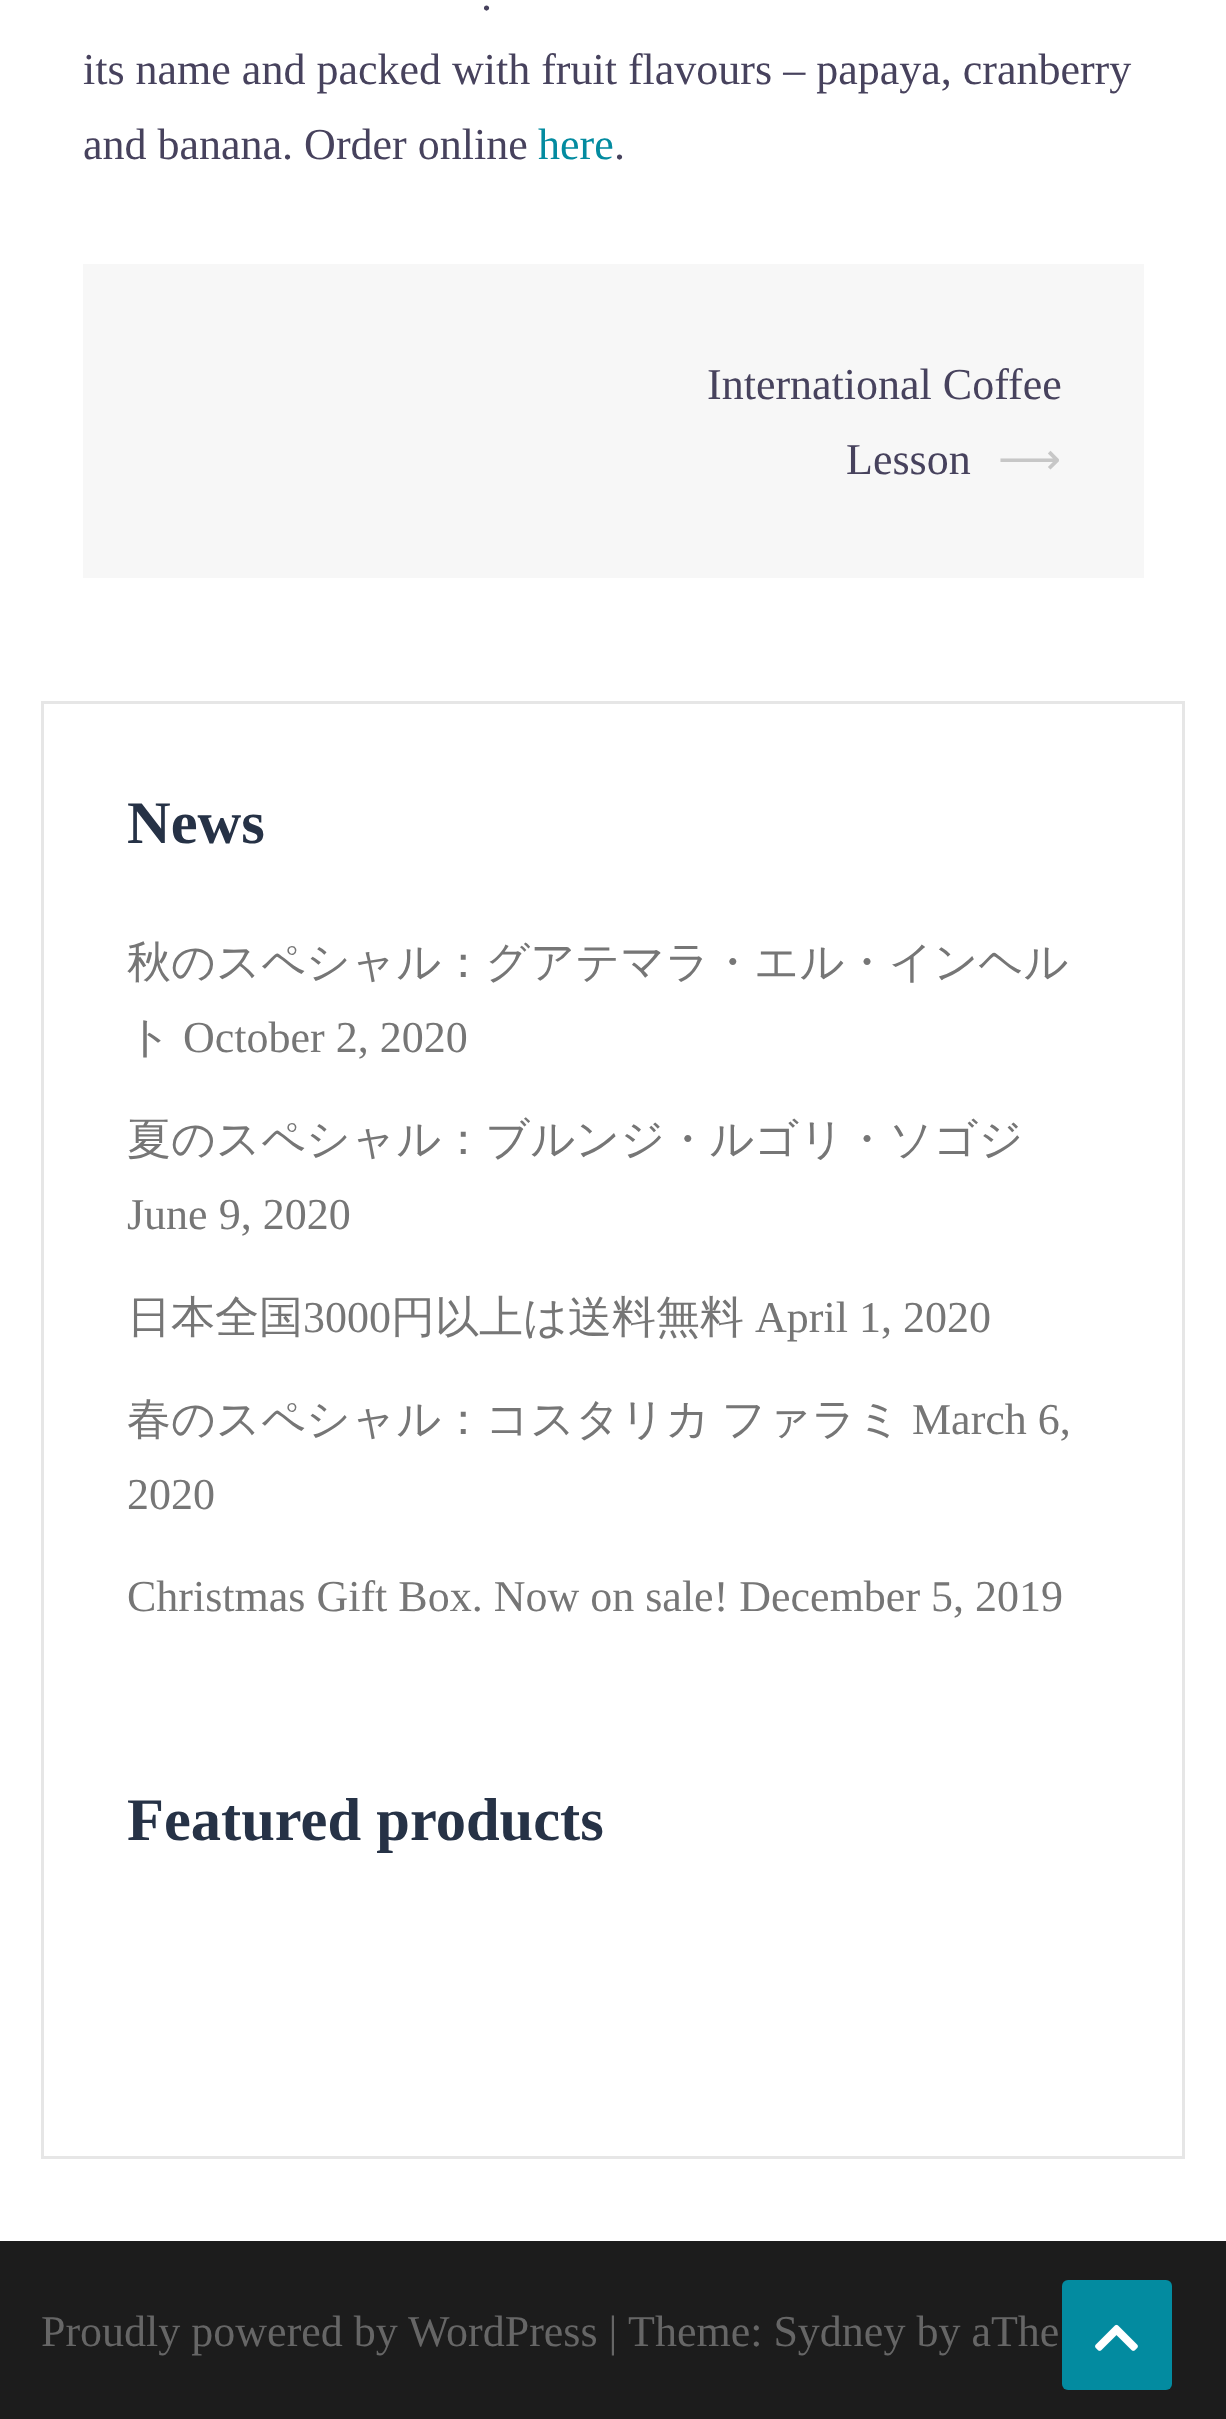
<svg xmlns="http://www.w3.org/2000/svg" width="1226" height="2419">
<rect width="100%" height="100%" fill="#fff"/>
<text x="481" y="10" style="font-family:Liberation Serif;font-size:44px;fill:#47425d">.</text>
<text x="83" y="84" style="font-family:Liberation Serif;font-size:44px;fill:#47425d">its name and packed with fruit flavours – papaya, cranberry</text>
<text x="83" y="159" style="font-family:Liberation Serif;font-size:44px;fill:#47425d">and banana. Order online</text>
<text x="538" y="159" style="font-family:Liberation Serif;font-size:44px;fill:#038ba0">here</text>
<text x="614" y="159" style="font-family:Liberation Serif;font-size:44px;fill:#47425d">.</text>
<rect x="83" y="264" width="1061" height="314" fill="#f7f7f7"/>
<text x="707" y="399" style="font-family:Liberation Serif;font-size:44px;fill:#47425d">International Coffee</text>
<text x="846" y="474" style="font-family:Liberation Serif;font-size:44px;fill:#47425d">Lesson</text>
<text x="998" y="474" style="font-family:DejaVu Sans;font-size:44px;fill:#c7c7c7">⟶</text>
<rect x="42.5" y="702.5" width="1141" height="1455" fill="none" stroke="#e6e6e6" stroke-width="3"/>
<text x="127" y="843" style="font-family:Liberation Serif;font-size:60.5px;font-weight:bold;fill:#263246">News</text>
<text x="127" y="977" style="font-family:WenQuanYi Zen Hei;font-size:44px;font-weight:500;fill:#767676">秋のスペシャル：グアテマラ・エル・インヘル</text>
<text x="127" y="1052" style="font-family:WenQuanYi Zen Hei;font-size:44px;font-weight:500;fill:#767676">ト</text>
<text x="183" y="1052" style="font-family:Liberation Serif;font-size:44px;fill:#767676">October 2, 2020</text>
<text x="127" y="1154" style="font-family:WenQuanYi Zen Hei;font-size:44px;font-weight:500;fill:#767676">夏のスペシャル：ブルンジ・ルゴリ・ソゴジ</text>
<text x="127" y="1229" style="font-family:Liberation Serif;font-size:44px;fill:#767676">June 9, 2020</text>
<text x="127" y="1332" style="font-family:WenQuanYi Zen Hei;font-size:44px;font-weight:500;fill:#767676">日本全国</text>
<text x="303" y="1332" style="font-family:Liberation Serif;font-size:44px;fill:#767676">3000</text>
<text x="391" y="1332" style="font-family:WenQuanYi Zen Hei;font-size:44px;font-weight:500;fill:#767676">円以上は送料無料</text>
<text x="755" y="1332" style="font-family:Liberation Serif;font-size:44px;fill:#767676">April 1, 2020</text>
<text x="127" y="1434" word-spacing="-2" style="font-family:WenQuanYi Zen Hei;font-size:44px;font-weight:500;fill:#767676">春のスペシャル：コスタリカ ファラミ</text>
<text x="912" y="1434" style="font-family:Liberation Serif;font-size:44px;fill:#767676">March 6,</text>
<text x="127" y="1509" style="font-family:Liberation Serif;font-size:44px;fill:#767676">2020</text>
<text x="127" y="1611" style="font-family:Liberation Serif;font-size:44px;fill:#767676">Christmas Gift Box. Now on sale! December 5, 2019</text>
<text x="127" y="1840" style="font-family:Liberation Serif;font-size:60.5px;font-weight:bold;fill:#263246">Featured products</text>
<rect y="2241" width="1226" height="178" fill="#1c1c1c"/>
<text x="41" y="2346" style="font-family:Liberation Serif;font-size:44px;fill:#666">Proudly powered by WordPress |</text>
<text x="628" y="2346" style="font-family:Liberation Serif;font-size:44px;fill:#666">Theme: Sydney by aThe</text>
<rect x="1062" y="2280" width="110" height="110" rx="6" fill="#038ba0"/>
<image x="1095" y="2324" width="43" height="27" href="media/1.png"/>
</svg>
